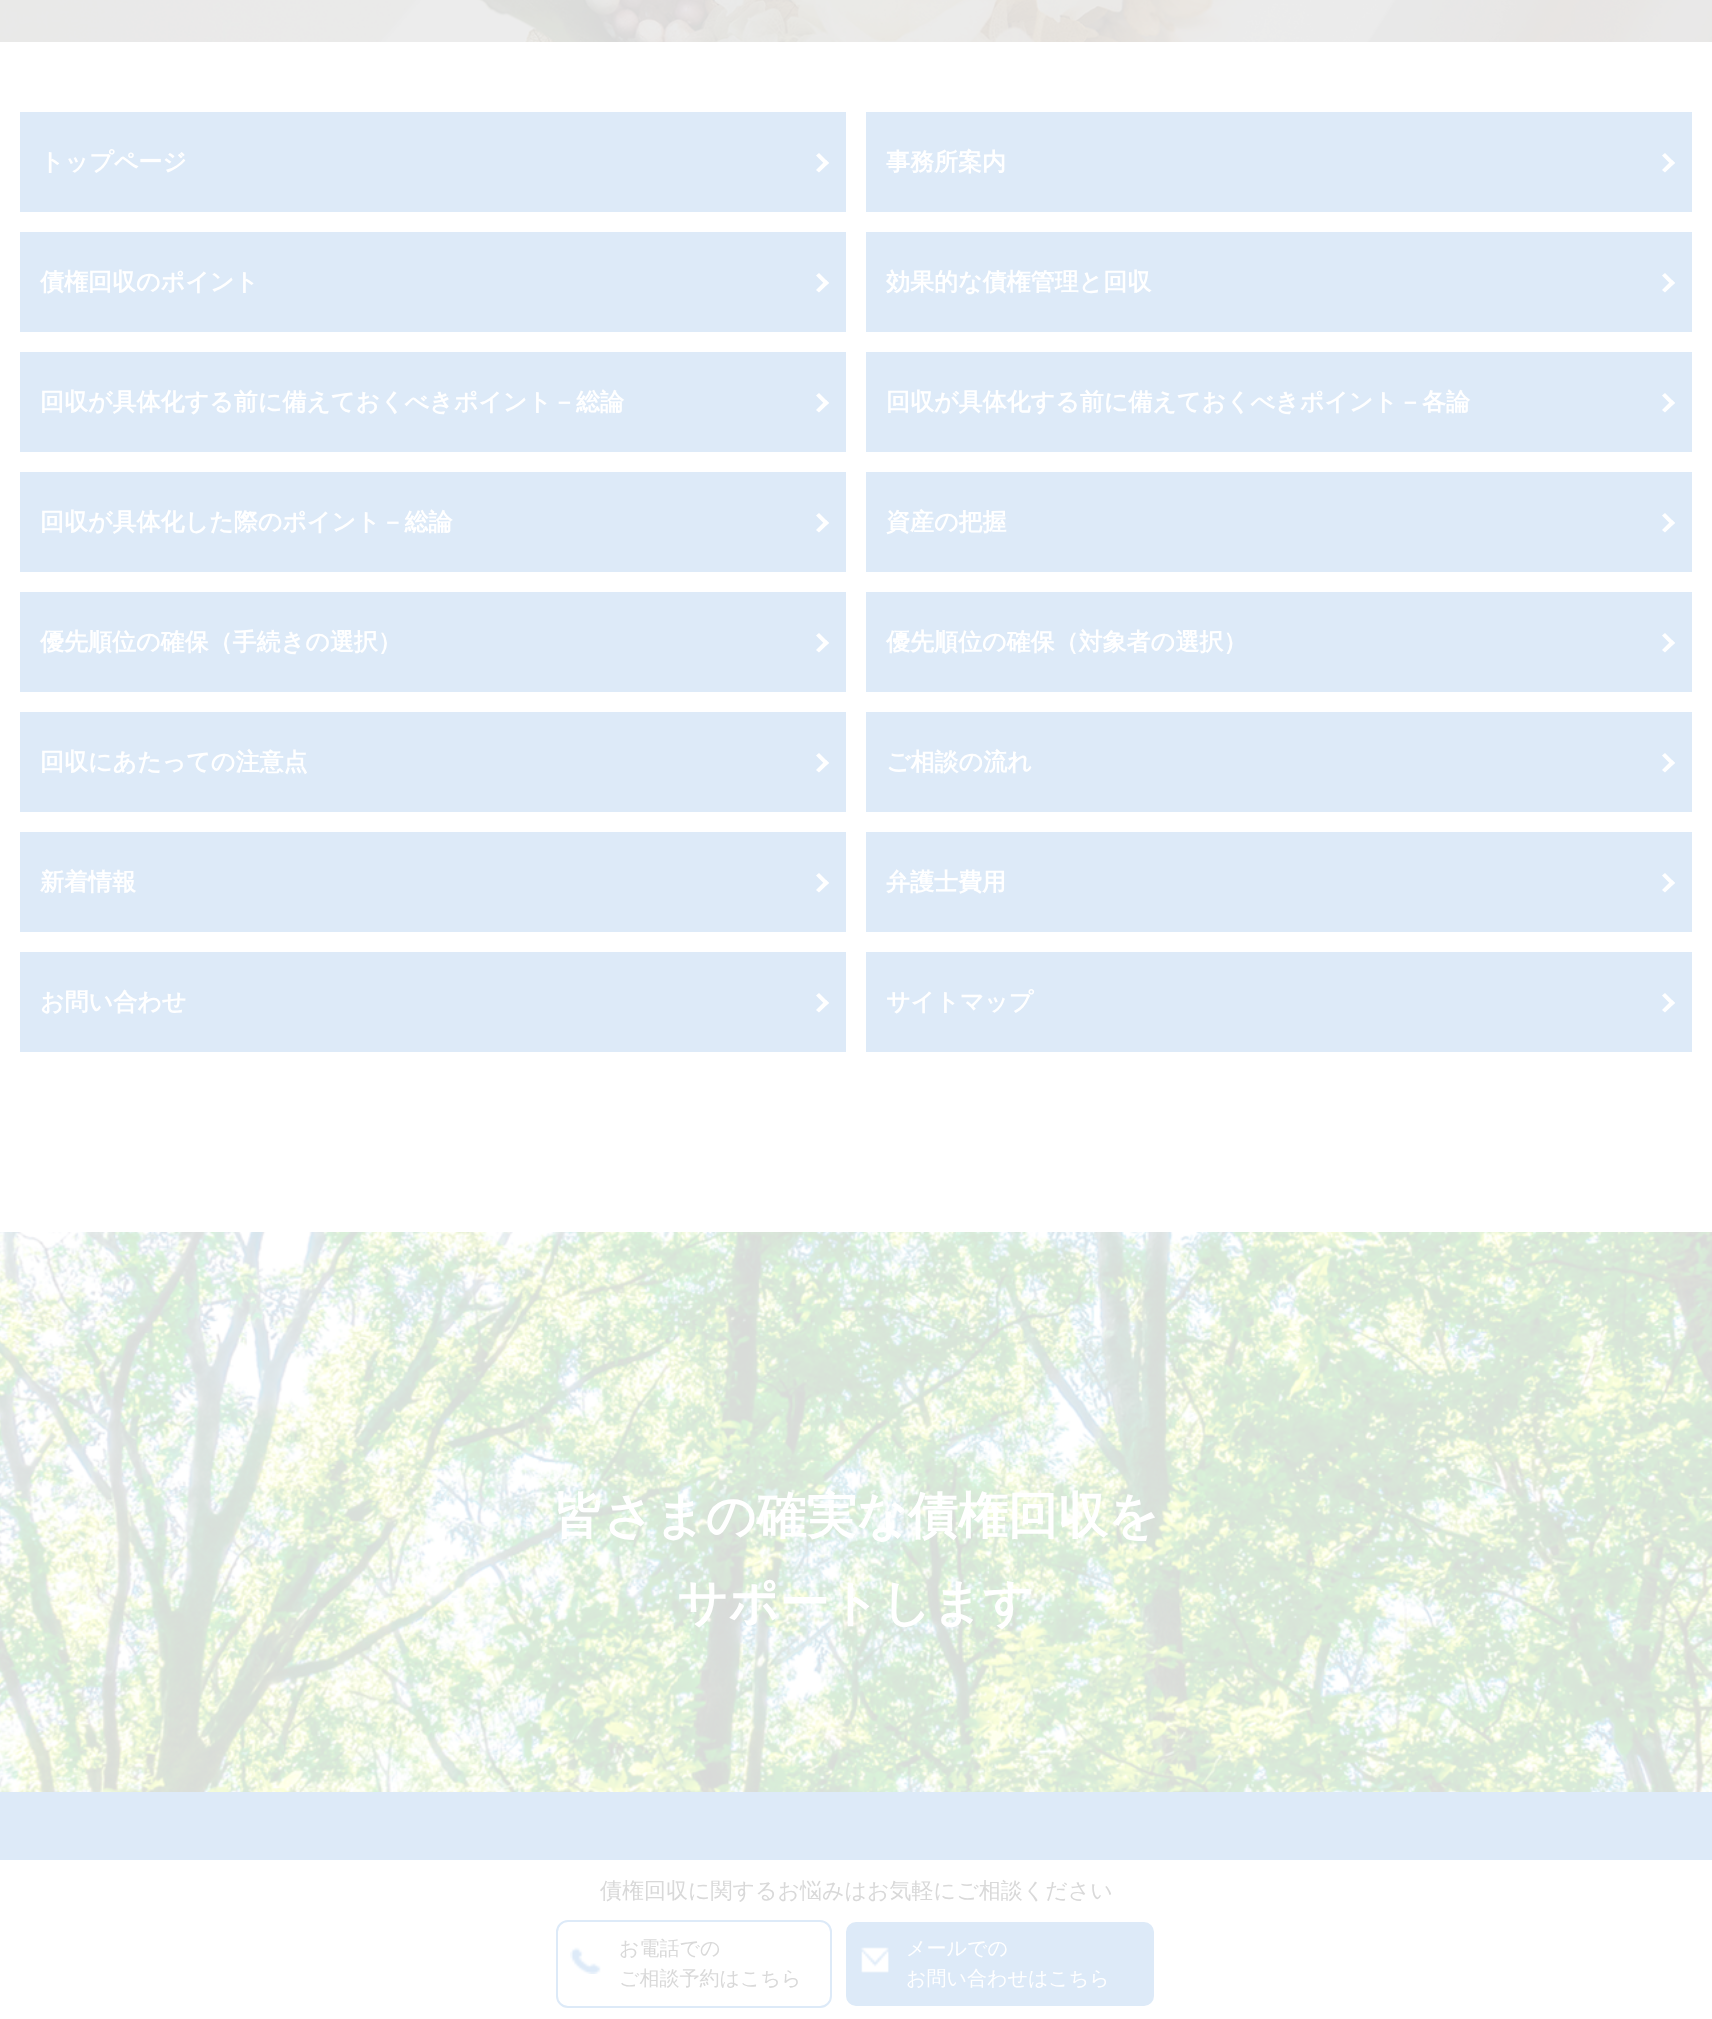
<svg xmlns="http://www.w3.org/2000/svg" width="1712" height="2019">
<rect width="100%" height="100%" fill="#fff"/>
<image x="0" y="0" width="1712" height="42" href="media/1.png"/>
<rect x="20" y="112" width="826" height="100" fill="#ddeaf8"/>
<text x="40" y="170" style="font-family:WenQuanYi Zen Hei;font-size:24px;font-weight:bold;fill:#fff">トップページ</text>
<path d="M816 155.5l3-2.5l10 10l-3 2.5z" fill="#fff"/>
<path d="M816 170l10-10l3 3l-10 9.5z" fill="#fff"/>
<rect x="866" y="112" width="826" height="100" fill="#ddeaf8"/>
<text x="886" y="170" style="font-family:WenQuanYi Zen Hei;font-size:24px;font-weight:bold;fill:#fff">事務所案内</text>
<path d="M1662 155.5l3-2.5l10 10l-3 2.5z" fill="#fff"/>
<path d="M1662 170l10-10l3 3l-10 9.5z" fill="#fff"/>
<rect x="20" y="232" width="826" height="100" fill="#ddeaf8"/>
<text x="40" y="290" style="font-family:WenQuanYi Zen Hei;font-size:24px;font-weight:bold;fill:#fff">債権回収のポイント</text>
<path d="M816 275.5l3-2.5l10 10l-3 2.5z" fill="#fff"/>
<path d="M816 290l10-10l3 3l-10 9.5z" fill="#fff"/>
<rect x="866" y="232" width="826" height="100" fill="#ddeaf8"/>
<text x="886" y="290" style="font-family:WenQuanYi Zen Hei;font-size:24px;font-weight:bold;fill:#fff">効果的な債権管理と回収</text>
<path d="M1662 275.5l3-2.5l10 10l-3 2.5z" fill="#fff"/>
<path d="M1662 290l10-10l3 3l-10 9.5z" fill="#fff"/>
<rect x="20" y="352" width="826" height="100" fill="#ddeaf8"/>
<text x="40" y="410" style="font-family:WenQuanYi Zen Hei;font-size:24px;font-weight:bold;fill:#fff">回収が具体化する前に備えておくべきポイント－総論</text>
<path d="M816 395.5l3-2.5l10 10l-3 2.5z" fill="#fff"/>
<path d="M816 410l10-10l3 3l-10 9.5z" fill="#fff"/>
<rect x="866" y="352" width="826" height="100" fill="#ddeaf8"/>
<text x="886" y="410" style="font-family:WenQuanYi Zen Hei;font-size:24px;font-weight:bold;fill:#fff">回収が具体化する前に備えておくべきポイント－各論</text>
<path d="M1662 395.5l3-2.5l10 10l-3 2.5z" fill="#fff"/>
<path d="M1662 410l10-10l3 3l-10 9.5z" fill="#fff"/>
<rect x="20" y="472" width="826" height="100" fill="#ddeaf8"/>
<text x="40" y="530" style="font-family:WenQuanYi Zen Hei;font-size:24px;font-weight:bold;fill:#fff">回収が具体化した際のポイント－総論</text>
<path d="M816 515.5l3-2.5l10 10l-3 2.5z" fill="#fff"/>
<path d="M816 530l10-10l3 3l-10 9.5z" fill="#fff"/>
<rect x="866" y="472" width="826" height="100" fill="#ddeaf8"/>
<text x="886" y="530" style="font-family:WenQuanYi Zen Hei;font-size:24px;font-weight:bold;fill:#fff">資産の把握</text>
<path d="M1662 515.5l3-2.5l10 10l-3 2.5z" fill="#fff"/>
<path d="M1662 530l10-10l3 3l-10 9.5z" fill="#fff"/>
<rect x="20" y="592" width="826" height="100" fill="#ddeaf8"/>
<text x="40" y="650" style="font-family:WenQuanYi Zen Hei;font-size:24px;font-weight:bold;fill:#fff">優先順位の確保（手続きの選択）</text>
<path d="M816 635.5l3-2.5l10 10l-3 2.5z" fill="#fff"/>
<path d="M816 650l10-10l3 3l-10 9.5z" fill="#fff"/>
<rect x="866" y="592" width="826" height="100" fill="#ddeaf8"/>
<text x="886" y="650" style="font-family:WenQuanYi Zen Hei;font-size:24px;font-weight:bold;fill:#fff">優先順位の確保（対象者の選択）</text>
<path d="M1662 635.5l3-2.5l10 10l-3 2.5z" fill="#fff"/>
<path d="M1662 650l10-10l3 3l-10 9.5z" fill="#fff"/>
<rect x="20" y="712" width="826" height="100" fill="#ddeaf8"/>
<text x="40" y="770" style="font-family:WenQuanYi Zen Hei;font-size:24px;font-weight:bold;fill:#fff">回収にあたっての注意点</text>
<path d="M816 755.5l3-2.5l10 10l-3 2.5z" fill="#fff"/>
<path d="M816 770l10-10l3 3l-10 9.5z" fill="#fff"/>
<rect x="866" y="712" width="826" height="100" fill="#ddeaf8"/>
<text x="886" y="770" style="font-family:WenQuanYi Zen Hei;font-size:24px;font-weight:bold;fill:#fff">ご相談の流れ</text>
<path d="M1662 755.5l3-2.5l10 10l-3 2.5z" fill="#fff"/>
<path d="M1662 770l10-10l3 3l-10 9.5z" fill="#fff"/>
<rect x="20" y="832" width="826" height="100" fill="#ddeaf8"/>
<text x="40" y="890" style="font-family:WenQuanYi Zen Hei;font-size:24px;font-weight:bold;fill:#fff">新着情報</text>
<path d="M816 875.5l3-2.5l10 10l-3 2.5z" fill="#fff"/>
<path d="M816 890l10-10l3 3l-10 9.5z" fill="#fff"/>
<rect x="866" y="832" width="826" height="100" fill="#ddeaf8"/>
<text x="886" y="890" style="font-family:WenQuanYi Zen Hei;font-size:24px;font-weight:bold;fill:#fff">弁護士費用</text>
<path d="M1662 875.5l3-2.5l10 10l-3 2.5z" fill="#fff"/>
<path d="M1662 890l10-10l3 3l-10 9.5z" fill="#fff"/>
<rect x="20" y="952" width="826" height="100" fill="#ddeaf8"/>
<text x="40" y="1010" style="font-family:WenQuanYi Zen Hei;font-size:24px;font-weight:bold;fill:#fff">お問い合わせ</text>
<path d="M816 995.5l3-2.5l10 10l-3 2.5z" fill="#fff"/>
<path d="M816 1010l10-10l3 3l-10 9.5z" fill="#fff"/>
<rect x="866" y="952" width="826" height="100" fill="#ddeaf8"/>
<text x="886" y="1010" style="font-family:WenQuanYi Zen Hei;font-size:24px;font-weight:bold;fill:#fff">サイトマップ</text>
<path d="M1662 995.5l3-2.5l10 10l-3 2.5z" fill="#fff"/>
<path d="M1662 1010l10-10l3 3l-10 9.5z" fill="#fff"/>
<image x="0" y="1232" width="1712" height="560" href="media/2.png"/>
<text x="553" y="1533" style="font-family:WenQuanYi Zen Hei;font-size:50px;font-weight:bold;fill:#fff">皆さまの確実な債権回収を</text>
<text x="677" y="1620" style="font-family:WenQuanYi Zen Hei;font-size:50px;font-weight:bold;fill:#fff">サポートします</text>
<rect y="1792" width="1712" height="68" fill="#ddeaf8"/>
<text x="600" y="1898" style="font-family:WenQuanYi Zen Hei;font-size:22px;font-weight:500;fill:#d9d9d9">債権回収に関するお悩みはお気軽にご相談ください</text>
<rect x="557" y="1921" width="274" height="86" rx="11" fill="none" stroke="#ddeaf8" stroke-width="2"/>
<image x="570" y="1947" width="31" height="27" href="media/3.png"/>
<text x="619" y="1955" style="font-family:WenQuanYi Zen Hei;font-size:20px;font-weight:500;fill:#d9d9d9">お電話での</text>
<text x="619" y="1985" style="font-family:WenQuanYi Zen Hei;font-size:20px;font-weight:500;fill:#d9d9d9">ご相談予約はこちら</text>
<rect x="845" y="1921" width="310" height="86" rx="11" fill="#ddeaf8" stroke="#fff" stroke-width="2"/>
<image x="860" y="1947" width="29" height="26" href="media/4.png"/>
<text x="906" y="1955" style="font-family:WenQuanYi Zen Hei;font-size:20px;font-weight:500;fill:#fff">メールでの</text>
<text x="906" y="1985" style="font-family:WenQuanYi Zen Hei;font-size:20px;font-weight:500;fill:#fff">お問い合わせはこちら</text>
</svg>
